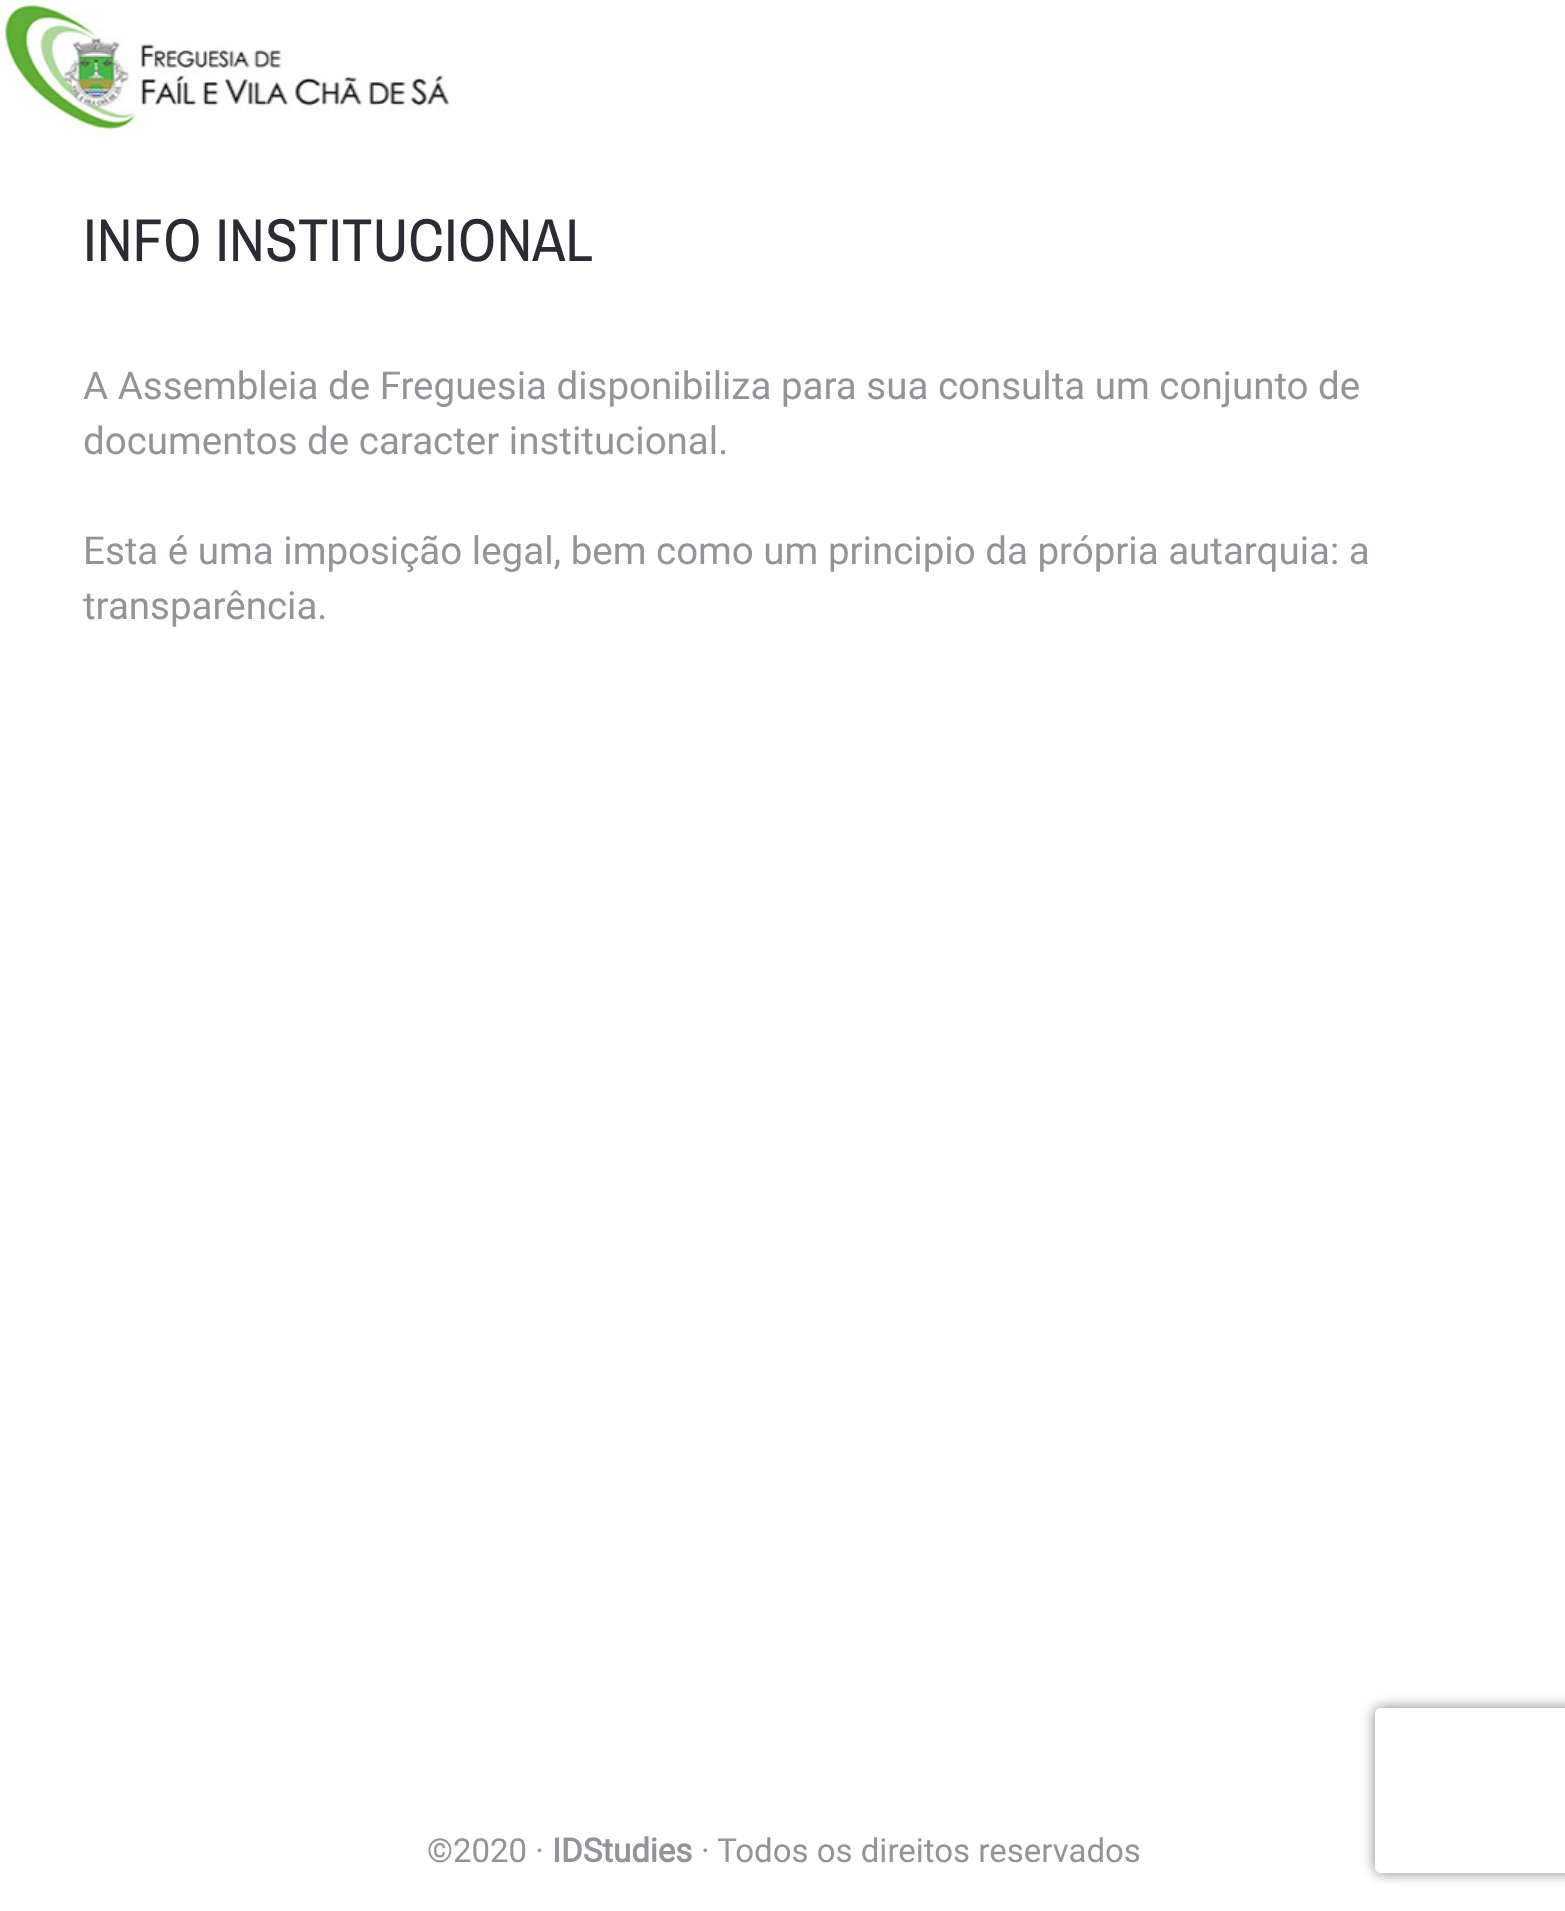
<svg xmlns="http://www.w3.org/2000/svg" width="1565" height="1911">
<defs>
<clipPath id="clip1"><path d="M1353 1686h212v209h-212zm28 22h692c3.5 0 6 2.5 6 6v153c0 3.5-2.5 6-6 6h-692c-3.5 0-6-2.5-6-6v-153c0-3.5 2.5-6 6-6z" clip-rule="evenodd"/></clipPath>
</defs>
<rect width="100%" height="100%" fill="#fff"/>
<image x="5" y="5" width="445" height="125" href="media/1.png"/>
<text x="83" y="261" style="font-family:Archivo Narrow;font-size:60.5px;fill:#2b2c31">INFO INSTITUCIONAL</text>
<text x="83" y="399" style="font-family:Roboto;font-size:38.5px;fill:#929497">A Assembleia de Freguesia disponibiliza para sua consulta um conjunto de</text>
<text x="83" y="454" style="font-family:Roboto;font-size:38.5px;fill:#929497">documentos de caracter institucional.</text>
<text x="83" y="564" style="font-family:Roboto;font-size:38.5px;fill:#929497">Esta é uma imposição legal, bem como um principio da própria autarquia: a</text>
<text x="83" y="619" style="font-family:Roboto;font-size:38.5px;fill:#929497">transparência.</text>
<text x="427" y="1862" style="font-family:Roboto;font-size:33px;fill:#929497">©2020 ·</text>
<text x="552" y="1862" style="font-family:Roboto;font-size:33px;font-weight:bold;fill:#929497">IDStudies</text>
<text x="701" y="1862" style="font-family:Roboto;font-size:33px;fill:#929497">· Todos os direitos reservados</text>
<g clip-path="url(#clip1)">
<rect x="1375" y="1708" width="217" height="165" rx="6" fill="#808080" filter="blur(7px)"/>
</g>
</svg>
